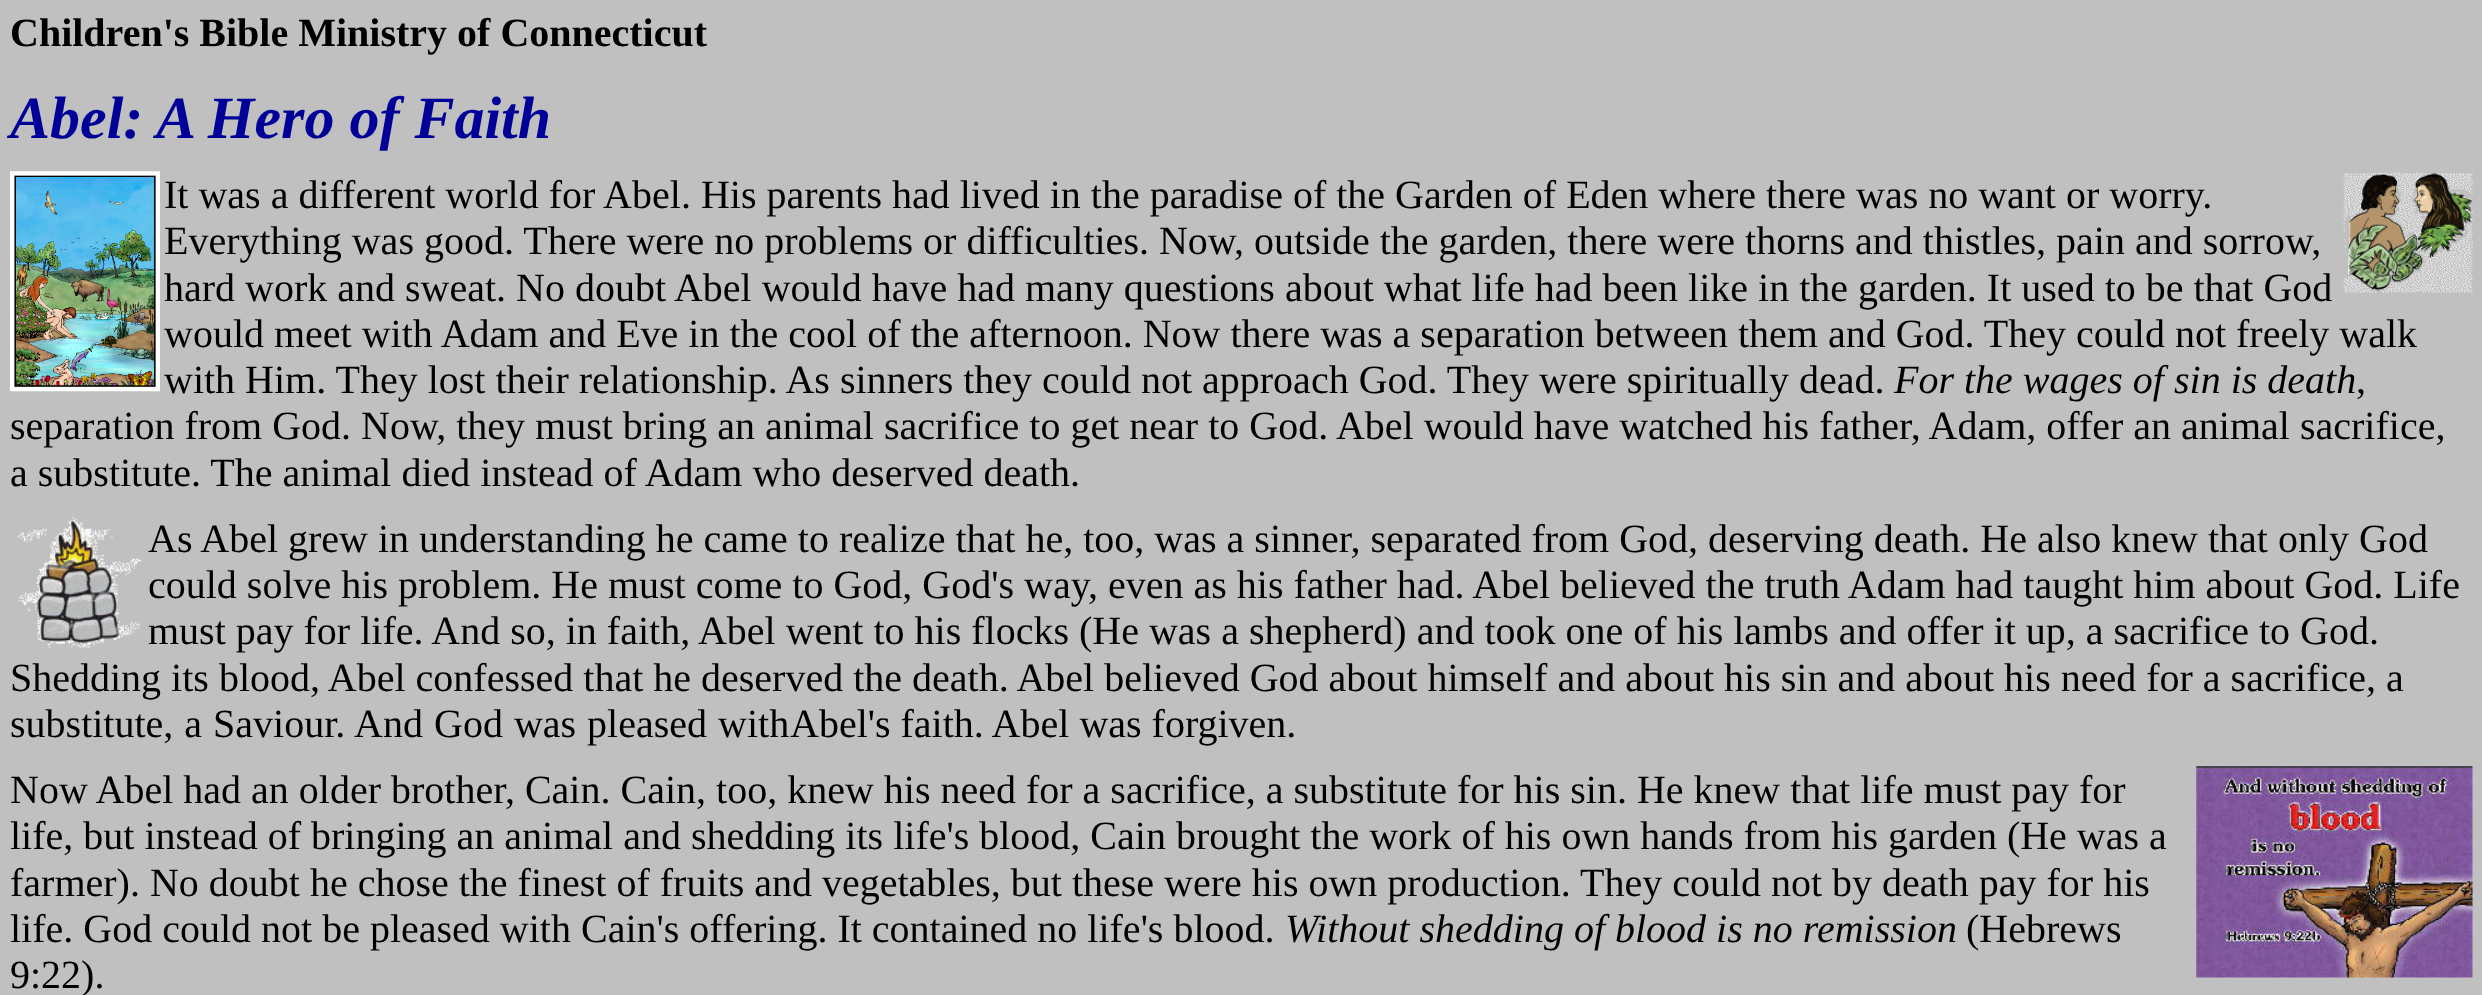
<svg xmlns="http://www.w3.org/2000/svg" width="2482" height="995">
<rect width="100%" height="100%" fill="#c0c0c0"/>
<text x="10" y="46" style="font-family:Liberation Serif;font-size:40px;font-weight:bold;fill:#000">Children's Bible Ministry of Connecticut</text>
<text x="10" y="138" style="font-family:Liberation Serif;font-size:60px;font-weight:bold;font-style:italic;fill:#009">Abel: A Hero of Faith</text>
<image x="10" y="171" width="150" height="221" href="media/1.png"/>
<text x="164" y="208" style="font-family:Liberation Serif;font-size:40px;fill:#000">It was a different world for Abel. His parents had lived in the paradise of the Garden of Eden where there was no want or worry.</text>
<image x="2343" y="172" width="130" height="121" href="media/2.png"/>
<text x="164" y="254" style="font-family:Liberation Serif;font-size:40px;fill:#000">Everything was good. There were no problems or difficulties. Now, outside the garden, there were thorns and thistles, pain and sorrow,</text>
<text x="164" y="301" style="font-family:Liberation Serif;font-size:40px;fill:#000">hard work and sweat. No doubt Abel would have had many questions about what life had been like in the garden. It used to be that God</text>
<text x="164" y="347" style="font-family:Liberation Serif;font-size:40px;fill:#000">would meet with Adam and Eve in the cool of the afternoon. Now there was a separation between them and God. They could not freely walk</text>
<text x="164" y="393" style="font-family:Liberation Serif;font-size:40px;fill:#000">with Him. They lost their relationship. As sinners they could not approach God. They were spiritually dead.</text>
<text x="1894" y="393" style="font-family:Liberation Serif;font-size:40px;font-style:italic;fill:#000">For the wages of sin is death</text>
<text x="2356" y="393" style="font-family:Liberation Serif;font-size:40px;fill:#000">,</text>
<text x="10" y="439" style="font-family:Liberation Serif;font-size:40px;fill:#000">separation from God. Now, they must bring an animal sacrifice to get near to God. Abel would have watched his father, Adam, offer an animal sacrifice,</text>
<text x="10" y="486" style="font-family:Liberation Serif;font-size:40px;fill:#000">a substitute. The animal died instead of Adam who deserved death.</text>
<image x="17" y="517" width="125" height="131" href="media/3.png"/>
<text x="148" y="552" style="font-family:Liberation Serif;font-size:40px;fill:#000">As Abel grew in understanding he came to realize that he, too, was a sinner, separated from God, deserving death. He also knew that only God</text>
<text x="148" y="598" style="font-family:Liberation Serif;font-size:40px;fill:#000">could solve his problem. He must come to God, God's way, even as his father had. Abel believed the truth Adam had taught him about God. Life</text>
<text x="148" y="644" style="font-family:Liberation Serif;font-size:40px;fill:#000">must pay for life. And so, in faith, Abel went to his flocks (He was a shepherd) and took one of his lambs and offer it up, a sacrifice to God.</text>
<text x="10" y="691" style="font-family:Liberation Serif;font-size:40px;fill:#000">Shedding its blood, Abel confessed that he deserved the death. Abel believed God about himself and about his sin and about his need for a sacrifice, a</text>
<text x="10" y="737" word-spacing="1" style="font-family:Liberation Serif;font-size:40px;fill:#000">substitute, a Saviour. And God was pleased with</text>
<text x="790" y="737" style="font-family:Liberation Serif;font-size:40px;fill:#000">Abel's faith. Abel was forgiven.</text>
<text x="10" y="803" style="font-family:Liberation Serif;font-size:40px;fill:#000">Now Abel had an older brother, Cain. Cain, too, knew his need for a sacrifice, a substitute for his sin. He knew that life must pay for</text>
<image x="2196" y="766" width="277" height="212" href="media/4.png"/>
<text x="10" y="849" style="font-family:Liberation Serif;font-size:40px;fill:#000">life, but instead of bringing an animal and shedding its life's blood, Cain brought the work of his own hands from his garden (He was a</text>
<text x="10" y="896" style="font-family:Liberation Serif;font-size:40px;fill:#000">farmer). No doubt he chose the finest of fruits and vegetables, but these were his own production. They could not by death pay for his</text>
<text x="10" y="942" style="font-family:Liberation Serif;font-size:40px;fill:#000">life. God could not be pleased with Cain's offering. It contained no life's blood.</text>
<text x="1285" y="942" style="font-family:Liberation Serif;font-size:40px;font-style:italic;fill:#000">Without shedding of blood is no remission</text>
<text x="1966" y="942" style="font-family:Liberation Serif;font-size:40px;fill:#000">(Hebrews</text>
<text x="10" y="988" style="font-family:Liberation Serif;font-size:40px;fill:#000">9:22).</text>
</svg>
